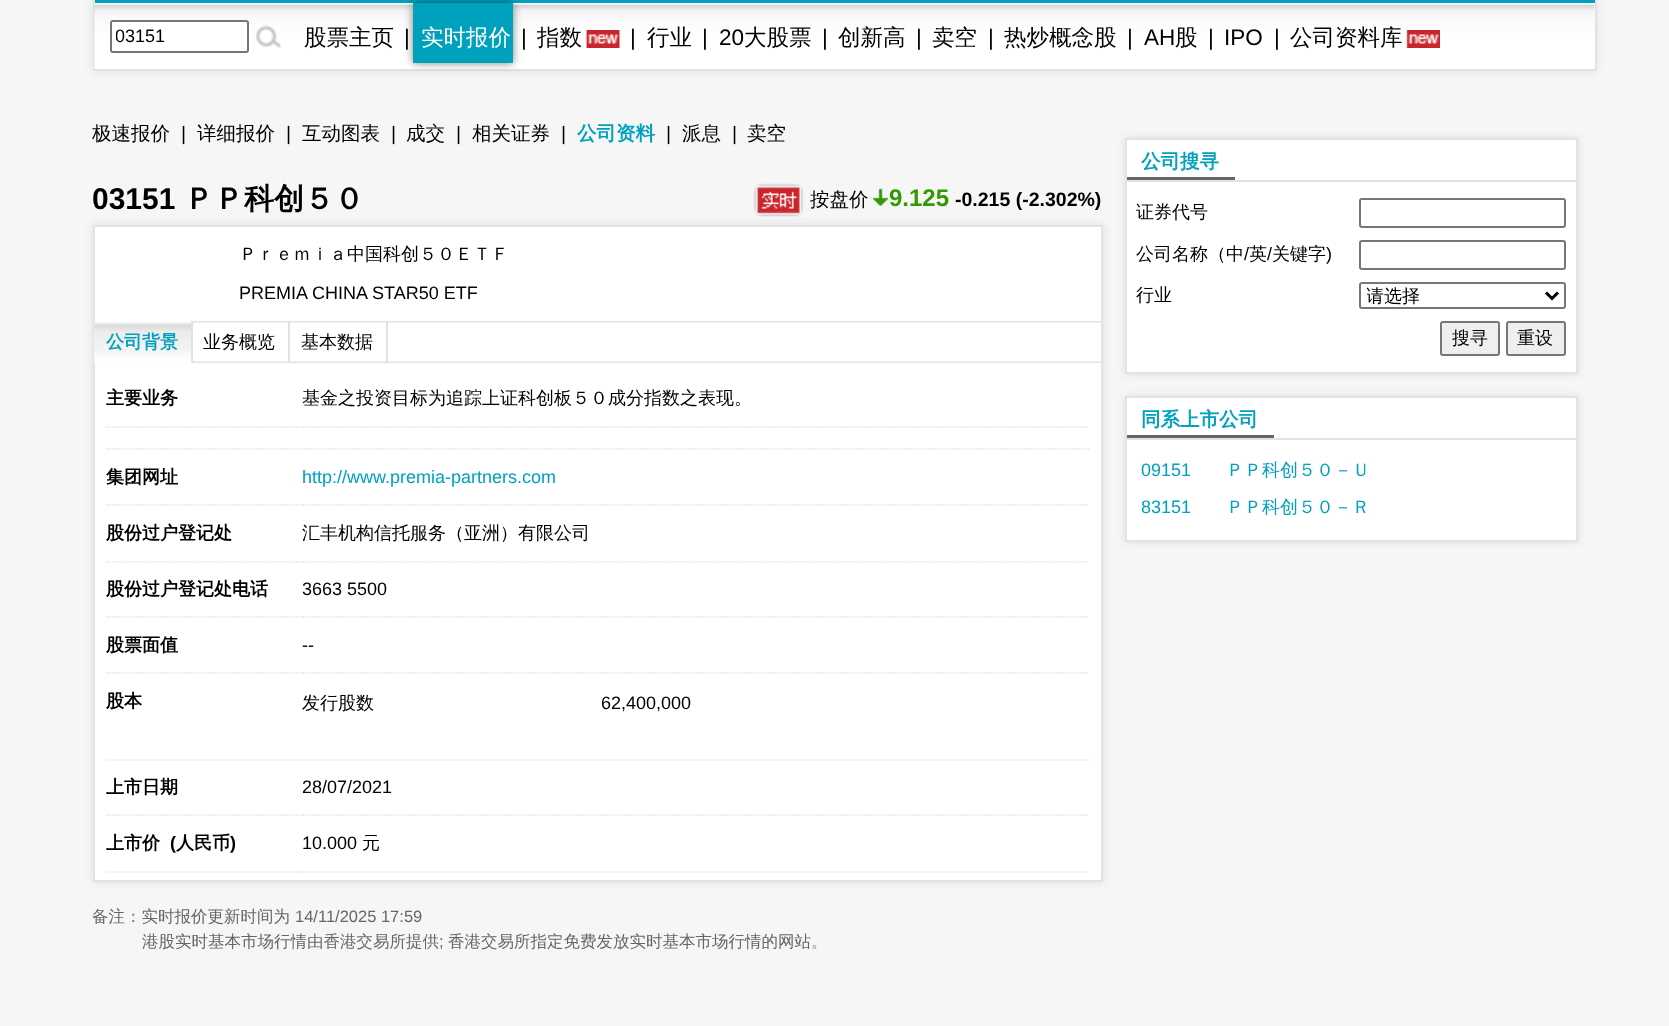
<svg xmlns="http://www.w3.org/2000/svg" width="1669" height="1026">
<defs>
<clipPath id="clip1"><rect x="116" y="24" width="127" height="24"/></clipPath>
<clipPath id="clip2"><rect x="1367" y="284" width="174" height="24"/></clipPath>
</defs>
<rect width="100%" height="100%" fill="#f6f6f6"/>
<rect x="93" width="1503" height="71" fill="#0000001a" filter="blur(4px)"/>
<rect x="1594" y="3" width="1" height="66" fill="#fff"/>
<rect x="1595" width="2" height="71" fill="#e2e2e2"/>
<rect x="93" y="69" width="1503" height="2" fill="#e2e2e2"/>
<rect x="93" width="2" height="71" fill="#e2e2e2"/>
<rect x="95" width="1500" height="3" fill="#00a1bd"/>
<image x="94" y="3" width="1501" height="66" href="media/1.png"/>
<rect x="111" y="21" width="137" height="31" rx="2" fill="#fff" stroke="#767676" stroke-width="2"/>
<g clip-path="url(#clip1)">
<text x="115" y="42" style="font-family:Liberation Sans;font-size:18px;fill:#000">03151</text>
</g>
<image x="256" y="25" width="25" height="23" href="media/2.png"/>
<text x="304" y="45" style="font-family:WenQuanYi Zen Hei;font-size:22.5px;font-weight:500;fill:#000">股票主页</text>
<text x="404" y="45" style="font-family:Liberation Sans;font-size:22.5px;fill:#000">|</text>
<rect x="413" y="3" width="100" height="60" fill="#00000080" filter="blur(4px)"/>
<rect x="413" y="3" width="100" height="60" fill="#00a1bd"/>
<text x="421" y="45" style="font-family:WenQuanYi Zen Hei;font-size:22.5px;font-weight:500;fill:#fff">实时报价</text>
<text x="521" y="45" style="font-family:Liberation Sans;font-size:22.5px;fill:#000">|</text>
<text x="537" y="45" style="font-family:WenQuanYi Zen Hei;font-size:22.5px;font-weight:500;fill:#000">指数</text>
<image x="586" y="30" width="34" height="18" href="media/3.png"/>
<text x="630" y="45" style="font-family:Liberation Sans;font-size:22.5px;fill:#000">|</text>
<text x="647" y="45" style="font-family:WenQuanYi Zen Hei;font-size:22.5px;font-weight:500;fill:#000">行业</text>
<text x="702" y="45" style="font-family:Liberation Sans;font-size:22.5px;fill:#000">|</text>
<text x="719" y="45" style="font-family:Liberation Sans;font-size:22.5px;fill:#000">20</text>
<text x="744" y="45" style="font-family:WenQuanYi Zen Hei;font-size:22.5px;font-weight:500;fill:#000">大股票</text>
<text x="822" y="45" style="font-family:Liberation Sans;font-size:22.5px;fill:#000">|</text>
<text x="838" y="45" style="font-family:WenQuanYi Zen Hei;font-size:22.5px;font-weight:500;fill:#000">创新高</text>
<text x="916" y="45" style="font-family:Liberation Sans;font-size:22.5px;fill:#000">|</text>
<text x="932" y="45" style="font-family:WenQuanYi Zen Hei;font-size:22.5px;font-weight:500;fill:#000">卖空</text>
<text x="988" y="45" style="font-family:Liberation Sans;font-size:22.5px;fill:#000">|</text>
<text x="1004" y="45" style="font-family:WenQuanYi Zen Hei;font-size:22.5px;font-weight:500;fill:#000">热炒概念股</text>
<text x="1127" y="45" style="font-family:Liberation Sans;font-size:22.5px;fill:#000">|</text>
<text x="1144" y="45" style="font-family:Liberation Sans;font-size:22.5px;fill:#000">AH</text>
<text x="1175" y="45" style="font-family:WenQuanYi Zen Hei;font-size:22.5px;font-weight:500;fill:#000">股</text>
<text x="1208" y="45" style="font-family:Liberation Sans;font-size:22.5px;fill:#000">|</text>
<text x="1224" y="45" style="font-family:Liberation Sans;font-size:22.5px;fill:#000">IPO</text>
<text x="1274" y="45" style="font-family:Liberation Sans;font-size:22.5px;fill:#000">|</text>
<text x="1290" y="45" style="font-family:WenQuanYi Zen Hei;font-size:22.5px;font-weight:500;fill:#000">公司资料库</text>
<image x="1406" y="30" width="34" height="18" href="media/4.png"/>
<text x="92" y="140" style="font-family:WenQuanYi Zen Hei;font-size:19.5px;font-weight:500;fill:#000">极速报价</text>
<text x="181" y="140" style="font-family:Liberation Sans;font-size:19.5px;fill:#000">|</text>
<text x="197" y="140" style="font-family:WenQuanYi Zen Hei;font-size:19.5px;font-weight:500;fill:#000">详细报价</text>
<text x="286" y="140" style="font-family:Liberation Sans;font-size:19.5px;fill:#000">|</text>
<text x="302" y="140" style="font-family:WenQuanYi Zen Hei;font-size:19.5px;font-weight:500;fill:#000">互动图表</text>
<text x="391" y="140" style="font-family:Liberation Sans;font-size:19.5px;fill:#000">|</text>
<text x="406" y="140" style="font-family:WenQuanYi Zen Hei;font-size:19.5px;font-weight:500;fill:#000">成交</text>
<text x="456" y="140" style="font-family:Liberation Sans;font-size:19.5px;fill:#000">|</text>
<text x="472" y="140" style="font-family:WenQuanYi Zen Hei;font-size:19.5px;font-weight:500;fill:#000">相关证券</text>
<text x="561" y="140" style="font-family:Liberation Sans;font-size:19.5px;fill:#000">|</text>
<text x="577" y="140" style="font-family:WenQuanYi Zen Hei;font-size:19.5px;font-weight:bold;fill:#00a1bd">公司资料</text>
<text x="666" y="140" style="font-family:Liberation Sans;font-size:19.5px;fill:#000">|</text>
<text x="682" y="140" style="font-family:WenQuanYi Zen Hei;font-size:19.5px;font-weight:500;fill:#000">派息</text>
<text x="732" y="140" style="font-family:Liberation Sans;font-size:19.5px;fill:#000">|</text>
<text x="747" y="140" style="font-family:WenQuanYi Zen Hei;font-size:19.5px;font-weight:500;fill:#000">卖空</text>
<text x="92" y="209" style="font-family:Liberation Sans;font-size:30px;font-weight:bold;fill:#000">03151</text>
<text x="184" y="209" style="font-family:WenQuanYi Zen Hei;font-size:30px;font-weight:bold;fill:#000">ＰＰ科创５０</text>
<image x="753" y="183" width="51" height="34" href="media/5.png"/>
<text x="810" y="206" style="font-family:WenQuanYi Zen Hei;font-size:19.5px;font-weight:500;fill:#000">按盘价</text>
<image x="873" y="188" width="15" height="18" href="media/6.png"/>
<text x="889" y="206" style="font-family:Liberation Sans;font-size:24px;font-weight:bold;fill:#390">9.125</text>
<text x="955" y="206" style="font-family:Liberation Sans;font-size:19.5px;font-weight:bold;fill:#000">-0.215 (-2.302%)</text>
<rect x="93" y="225" width="1010" height="657" fill="#0000001a" filter="blur(4px)"/>
<rect x="94" y="226" width="1008" height="655" fill="#fff" stroke="#e2e2e2" stroke-width="2"/>
<text x="239" y="260" style="font-family:WenQuanYi Zen Hei;font-size:18px;font-weight:500;fill:#000">Ｐｒｅｍｉａ中国科创５０ＥＴＦ</text>
<text x="239" y="299" style="font-family:Liberation Sans;font-size:18px;fill:#000">PREMIA CHINA STAR50 ETF</text>
<image x="94" y="321" width="1007" height="42" href="media/7.png"/>
<image x="94" y="321" width="97" height="42" href="media/8.png"/>
<rect x="191" y="321" width="2" height="42" fill="#e2e2e2"/>
<text x="106" y="348" style="font-family:WenQuanYi Zen Hei;font-size:18px;font-weight:bold;fill:#00a1bd">公司背景</text>
<rect x="288" y="321" width="2" height="42" fill="#e2e2e2"/>
<text x="203" y="348" style="font-family:WenQuanYi Zen Hei;font-size:18px;font-weight:500;fill:#000">业务概览</text>
<rect x="386" y="321" width="2" height="42" fill="#e2e2e2"/>
<text x="301" y="348" style="font-family:WenQuanYi Zen Hei;font-size:18px;font-weight:500;fill:#000">基本数据</text>
<path d="M106.5 427h196.5" fill="none" stroke="#e2e2e2" stroke-width="1.5" stroke-dasharray="1.5 1.5"/>
<text x="106" y="404" style="font-family:WenQuanYi Zen Hei;font-size:18px;font-weight:bold;fill:#000">主要业务</text>
<path d="M303 427h786" fill="none" stroke="#e2e2e2" stroke-width="1.5" stroke-dasharray="1.5 1.5"/>
<text x="302" y="404" style="font-family:WenQuanYi Zen Hei;font-size:18px;font-weight:500;fill:#000">基金之投资目标为追踪上证科创板５０成分指数之表现。</text>
<path d="M106.5 449h982.5" fill="none" stroke="#e2e2e2" stroke-width="1.5" stroke-dasharray="1.5 1.5"/>
<path d="M106.5 505h196.5" fill="none" stroke="#e2e2e2" stroke-width="1.5" stroke-dasharray="1.5 1.5"/>
<text x="106" y="483" style="font-family:WenQuanYi Zen Hei;font-size:18px;font-weight:bold;fill:#000">集团网址</text>
<path d="M303 505h786" fill="none" stroke="#e2e2e2" stroke-width="1.5" stroke-dasharray="1.5 1.5"/>
<text x="302" y="483" style="font-family:Liberation Sans;font-size:18px;fill:#00a1bd">http://www.premia-partners.com</text>
<path d="M106.5 562h196.5" fill="none" stroke="#e2e2e2" stroke-width="1.5" stroke-dasharray="1.5 1.5"/>
<text x="106" y="539" style="font-family:WenQuanYi Zen Hei;font-size:18px;font-weight:bold;fill:#000">股份过户登记处</text>
<path d="M303 562h786" fill="none" stroke="#e2e2e2" stroke-width="1.5" stroke-dasharray="1.5 1.5"/>
<text x="302" y="539" style="font-family:WenQuanYi Zen Hei;font-size:18px;font-weight:500;fill:#000">汇丰机构信托服务（亚洲）有限公司</text>
<path d="M106.5 617h196.5" fill="none" stroke="#e2e2e2" stroke-width="1.5" stroke-dasharray="1.5 1.5"/>
<text x="106" y="595" style="font-family:WenQuanYi Zen Hei;font-size:18px;font-weight:bold;fill:#000">股份过户登记处电话</text>
<path d="M303 617h786" fill="none" stroke="#e2e2e2" stroke-width="1.5" stroke-dasharray="1.5 1.5"/>
<text x="302" y="595" style="font-family:Liberation Sans;font-size:18px;fill:#000">3663 5500</text>
<path d="M106.5 673h196.5" fill="none" stroke="#e2e2e2" stroke-width="1.5" stroke-dasharray="1.5 1.5"/>
<text x="106" y="651" style="font-family:WenQuanYi Zen Hei;font-size:18px;font-weight:bold;fill:#000">股票面值</text>
<path d="M303 673h786" fill="none" stroke="#e2e2e2" stroke-width="1.5" stroke-dasharray="1.5 1.5"/>
<text x="302" y="651" style="font-family:Liberation Sans;font-size:18px;fill:#000">--</text>
<text x="106" y="707" style="font-family:WenQuanYi Zen Hei;font-size:18px;font-weight:bold;fill:#000">股本</text>
<text x="302" y="709" style="font-family:WenQuanYi Zen Hei;font-size:18px;font-weight:500;fill:#000">发行股数</text>
<text x="601" y="709" style="font-family:Liberation Sans;font-size:18px;fill:#000">62,400,000</text>
<path d="M106.5 760h982.5" fill="none" stroke="#e2e2e2" stroke-width="1.5" stroke-dasharray="1.5 1.5"/>
<path d="M106.5 815h196.5" fill="none" stroke="#e2e2e2" stroke-width="1.5" stroke-dasharray="1.5 1.5"/>
<text x="106" y="793" style="font-family:WenQuanYi Zen Hei;font-size:18px;font-weight:bold;fill:#000">上市日期</text>
<path d="M303 815h786" fill="none" stroke="#e2e2e2" stroke-width="1.5" stroke-dasharray="1.5 1.5"/>
<text x="302" y="793" style="font-family:Liberation Sans;font-size:18px;fill:#000">28/07/2021</text>
<path d="M106.5 872h196.5" fill="none" stroke="#e2e2e2" stroke-width="1.5" stroke-dasharray="1.5 1.5"/>
<text x="106" y="849" style="font-family:WenQuanYi Zen Hei;font-size:18px;font-weight:bold;fill:#000">上市价</text>
<text x="170" y="849" style="font-family:Liberation Sans;font-size:18px;font-weight:bold;fill:#000">(</text>
<text x="176" y="849" style="font-family:WenQuanYi Zen Hei;font-size:18px;font-weight:bold;fill:#000">人民币</text>
<text x="230" y="849" style="font-family:Liberation Sans;font-size:18px;font-weight:bold;fill:#000">)</text>
<path d="M303 872h786" fill="none" stroke="#e2e2e2" stroke-width="1.5" stroke-dasharray="1.5 1.5"/>
<text x="302" y="849" style="font-family:Liberation Sans;font-size:18px;fill:#000">10.000</text>
<text x="362" y="849" style="font-family:WenQuanYi Zen Hei;font-size:18px;font-weight:500;fill:#000">元</text>
<text x="92" y="922" style="font-family:WenQuanYi Zen Hei;font-size:16.5px;font-weight:500;fill:#666">备注：实时报价更新时间为</text>
<text x="295" y="922" style="font-family:Liberation Sans;font-size:16.5px;fill:#666">14/11/2025 17:59</text>
<text x="142" y="947" style="font-family:WenQuanYi Zen Hei;font-size:16.5px;font-weight:500;fill:#666">港股实时基本市场行情由香港交易所提供</text>
<text x="439" y="947" style="font-family:Liberation Sans;font-size:16.5px;fill:#666">;</text>
<text x="448" y="947" style="font-family:WenQuanYi Zen Hei;font-size:16.5px;font-weight:500;fill:#666">香港交易所指定免费发放实时基本市场行情的网站。</text>
<rect x="1125" y="138" width="453" height="236" fill="#0000001a" filter="blur(4px)"/>
<rect x="1126" y="139" width="451" height="234" fill="#fff" stroke="#e2e2e2" stroke-width="2"/>
<rect x="1127" y="180" width="450" height="2" fill="#e2e2e2"/>
<rect x="1127" y="177" width="108" height="3" fill="#666"/>
<text x="1141" y="168" style="font-family:WenQuanYi Zen Hei;font-size:19.5px;font-weight:bold;fill:#00a1bd">公司搜寻</text>
<text x="1136" y="218" style="font-family:WenQuanYi Zen Hei;font-size:18px;font-weight:500;fill:#000">证券代号</text>
<rect x="1360" y="199" width="205" height="28" rx="2" fill="none" stroke="#767676" stroke-width="2"/>
<text x="1136" y="260" style="font-family:WenQuanYi Zen Hei;font-size:18px;font-weight:500;fill:#000">公司名称（中</text>
<text x="1244" y="260" style="font-family:Liberation Sans;font-size:18px;fill:#000">/</text>
<text x="1249" y="260" style="font-family:WenQuanYi Zen Hei;font-size:18px;font-weight:500;fill:#000">英</text>
<text x="1267" y="260" style="font-family:Liberation Sans;font-size:18px;fill:#000">/</text>
<text x="1272" y="260" style="font-family:WenQuanYi Zen Hei;font-size:18px;font-weight:500;fill:#000">关键字</text>
<text x="1326" y="260" style="font-family:Liberation Sans;font-size:18px;fill:#000">)</text>
<rect x="1360" y="241" width="205" height="28" rx="2" fill="none" stroke="#767676" stroke-width="2"/>
<text x="1136" y="301" style="font-family:WenQuanYi Zen Hei;font-size:18px;font-weight:500;fill:#000">行业</text>
<rect x="1360" y="283" width="205" height="25" rx="2" fill="none" stroke="#767676" stroke-width="2"/>
<path d="M1546 292.5l6 6l6-6" fill="none" stroke="#000" stroke-width="3"/>
<g clip-path="url(#clip2)">
<text x="1366" y="302" style="font-family:WenQuanYi Zen Hei;font-size:18px;font-weight:500;fill:#000">请选择</text>
</g>
<rect x="1441" y="322" width="58" height="33" rx="2" fill="#efefef" stroke="#767676" stroke-width="2"/>
<text x="1452" y="344" style="font-family:WenQuanYi Zen Hei;font-size:18px;font-weight:500;fill:#000">搜寻</text>
<rect x="1507" y="322" width="58" height="33" rx="2" fill="#efefef" stroke="#767676" stroke-width="2"/>
<text x="1517" y="344" style="font-family:WenQuanYi Zen Hei;font-size:18px;font-weight:500;fill:#000">重设</text>
<rect x="1125" y="396" width="453" height="146" fill="#0000001a" filter="blur(4px)"/>
<rect x="1126" y="397" width="451" height="144" fill="#fff" stroke="#e2e2e2" stroke-width="2"/>
<rect x="1127" y="438" width="450" height="2" fill="#e2e2e2"/>
<rect x="1127" y="435" width="147" height="3" fill="#666"/>
<text x="1141" y="426" style="font-family:WenQuanYi Zen Hei;font-size:19.5px;font-weight:bold;fill:#00a1bd">同系上市公司</text>
<text x="1141" y="476" style="font-family:Liberation Sans;font-size:18px;fill:#00a1bd">09151</text>
<text x="1226" y="476" style="font-family:WenQuanYi Zen Hei;font-size:18px;font-weight:500;fill:#00a1bd">ＰＰ科创５０－Ｕ</text>
<text x="1141" y="513" style="font-family:Liberation Sans;font-size:18px;fill:#00a1bd">83151</text>
<text x="1226" y="513" style="font-family:WenQuanYi Zen Hei;font-size:18px;font-weight:500;fill:#00a1bd">ＰＰ科创５０－Ｒ</text>
</svg>
